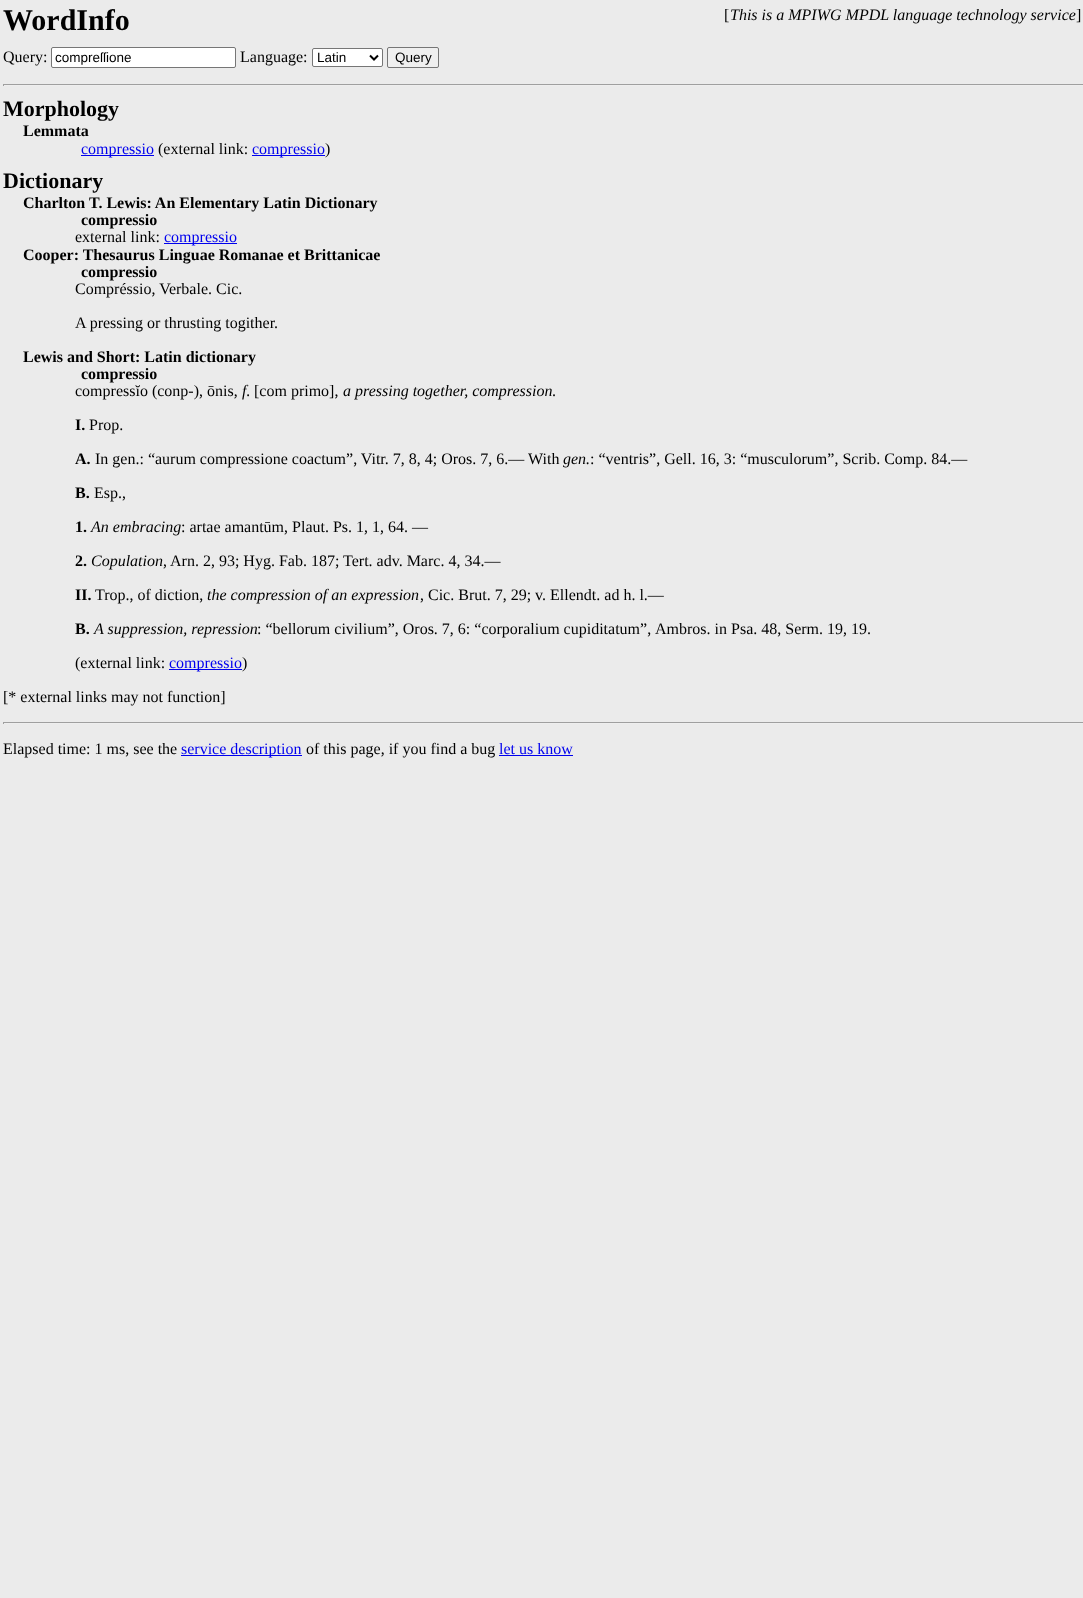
<svg xmlns="http://www.w3.org/2000/svg" width="1083" height="1598">
<rect width="100%" height="100%" fill="#ebebeb"/>
<text x="3" y="30" style="font-family:Liberation Serif;font-size:30px;font-weight:bold;fill:#000">WordInfo</text>
<text x="724" y="20" style="font-family:Liberation Serif;font-size:16px;fill:#000">[</text>
<text x="730" y="20" style="font-family:Liberation Serif;font-size:16px;font-style:italic;fill:#000">This is a MPIWG MPDL language technology service</text>
<text x="1076" y="20" style="font-family:Liberation Serif;font-size:16px;fill:#000">]</text>
<text x="3" y="62" style="font-family:Liberation Serif;font-size:16px;fill:#000">Query:</text>
<rect x="51.5" y="47.5" width="184" height="20" rx="1.5" fill="#fff" stroke="#767676"/>
<text x="55" y="62" style="font-family:Liberation Sans;font-size:13.5px;fill:#000">compreſſione</text>
<text x="240" y="62" style="font-family:Liberation Serif;font-size:16px;fill:#000">Language:</text>
<rect x="312.5" y="48.5" width="70" height="18" rx="1.5" fill="#fff" stroke="#767676"/>
<path d="M370 55.5l4 4l4-4" fill="none" stroke="#000" stroke-width="2"/>
<text x="317" y="62" style="font-family:Liberation Sans;font-size:13.5px;fill:#000">Latin</text>
<rect x="387.5" y="47.5" width="51" height="20" rx="1.5" fill="#efefef" stroke="#767676"/>
<text x="395" y="62" style="font-family:Liberation Sans;font-size:13.5px;fill:#000">Query</text>
<rect x="3" y="84" width="1080" height="1" fill="#9f9f9f"/>
<rect x="3" y="85" width="1080" height="1" fill="#eee"/>
<rect x="3" y="84" width="1" height="2" fill="#9f9f9f"/>
<text x="3" y="116" style="font-family:Liberation Serif;font-size:22px;font-weight:bold;fill:#000">Morphology</text>
<text x="23" y="136" style="font-family:Liberation Serif;font-size:16px;font-weight:bold;fill:#000">Lemmata</text>
<rect x="81" y="155" width="73" height="1" fill="#00e"/>
<text x="81" y="154" style="font-family:Liberation Serif;font-size:16px;fill:#00e">compressio</text>
<text x="158" y="154" style="font-family:Liberation Serif;font-size:16px;fill:#000">(external link:</text>
<rect x="252" y="155" width="73" height="1" fill="#00e"/>
<text x="252" y="154" style="font-family:Liberation Serif;font-size:16px;fill:#00e">compressio</text>
<text x="325" y="154" style="font-family:Liberation Serif;font-size:16px;fill:#000">)</text>
<text x="3" y="188" style="font-family:Liberation Serif;font-size:22px;font-weight:bold;fill:#000">Dictionary</text>
<text x="23" y="208" style="font-family:Liberation Serif;font-size:16px;font-weight:bold;fill:#000">Charlton T. Lewis: An Elementary Latin Dictionary</text>
<text x="81" y="225" style="font-family:Liberation Serif;font-size:16px;font-weight:bold;fill:#000">compressio</text>
<text x="75" y="242" style="font-family:Liberation Serif;font-size:16px;fill:#000">external link:</text>
<rect x="164" y="243" width="73" height="1" fill="#00e"/>
<text x="164" y="242" style="font-family:Liberation Serif;font-size:16px;fill:#00e">compressio</text>
<text x="23" y="260" style="font-family:Liberation Serif;font-size:16px;font-weight:bold;fill:#000">Cooper: Thesaurus Linguae Romanae et Brittanicae</text>
<text x="81" y="277" style="font-family:Liberation Serif;font-size:16px;font-weight:bold;fill:#000">compressio</text>
<text x="75" y="294" style="font-family:Liberation Serif;font-size:16px;fill:#000">Compréssio, Verbale. Cic.</text>
<text x="75" y="328" style="font-family:Liberation Serif;font-size:16px;fill:#000">A pressing or thrusting togither.</text>
<text x="23" y="362" style="font-family:Liberation Serif;font-size:16px;font-weight:bold;fill:#000">Lewis and Short: Latin dictionary</text>
<text x="81" y="379" style="font-family:Liberation Serif;font-size:16px;font-weight:bold;fill:#000">compressio</text>
<text x="75" y="396" style="font-family:Liberation Serif;font-size:16px;fill:#000">compressĭo (conp-), ōnis,</text>
<text x="242" y="396" style="font-family:Liberation Serif;font-size:16px;font-style:italic;fill:#000">f.</text>
<text x="254" y="396" style="font-family:Liberation Serif;font-size:16px;fill:#000">[com primo],</text>
<text x="343" y="396" style="font-family:Liberation Serif;font-size:16px;font-style:italic;fill:#000">a pressing together, compression</text>
<text x="552" y="396" style="font-family:Liberation Serif;font-size:16px;fill:#000">.</text>
<text x="75" y="430" style="font-family:Liberation Serif;font-size:16px;font-weight:bold;fill:#000">I.</text>
<text x="89" y="430" style="font-family:Liberation Serif;font-size:16px;fill:#000">Prop.</text>
<text x="75" y="464" style="font-family:Liberation Serif;font-size:16px;font-weight:bold;fill:#000">A.</text>
<text x="95" y="464" style="font-family:Liberation Serif;font-size:16px;fill:#000">In gen.: “aurum compressione coactum”, Vitr. 7, 8, 4; Oros. 7, 6.— With</text>
<text x="563" y="464" style="font-family:Liberation Serif;font-size:16px;font-style:italic;fill:#000">gen.</text>
<text x="590" y="464" style="font-family:Liberation Serif;font-size:16px;fill:#000">: “ventris”, Gell. 16, 3: “musculorum”, Scrib. Comp. 84.—</text>
<text x="75" y="498" style="font-family:Liberation Serif;font-size:16px;font-weight:bold;fill:#000">B.</text>
<text x="94" y="498" style="font-family:Liberation Serif;font-size:16px;fill:#000">Esp.,</text>
<text x="75" y="532" style="font-family:Liberation Serif;font-size:16px;font-weight:bold;fill:#000">1.</text>
<text x="91" y="532" style="font-family:Liberation Serif;font-size:16px;font-style:italic;fill:#000">An embracing</text>
<text x="181" y="532" style="font-family:Liberation Serif;font-size:16px;fill:#000">: artae amantūm, Plaut. Ps. 1, 1, 64. —</text>
<text x="75" y="566" style="font-family:Liberation Serif;font-size:16px;font-weight:bold;fill:#000">2.</text>
<text x="91" y="566" style="font-family:Liberation Serif;font-size:16px;font-style:italic;fill:#000">Copulation</text>
<text x="163" y="566" style="font-family:Liberation Serif;font-size:16px;fill:#000">,</text>
<text x="170" y="566" style="font-family:Liberation Serif;font-size:16px;fill:#000">Arn. 2, 93; Hyg. Fab. 187; Tert. adv. Marc. 4, 34.—</text>
<text x="75" y="600" style="font-family:Liberation Serif;font-size:16px;font-weight:bold;fill:#000">II.</text>
<text x="95" y="600" style="font-family:Liberation Serif;font-size:16px;fill:#000">Trop., of diction,</text>
<text x="207" y="600" style="font-family:Liberation Serif;font-size:16px;font-style:italic;fill:#000">the compression of an expression</text>
<text x="420" y="600" style="font-family:Liberation Serif;font-size:16px;fill:#000">, Cic. Brut. 7, 29; v. Ellendt. ad h. l.—</text>
<text x="75" y="634" style="font-family:Liberation Serif;font-size:16px;font-weight:bold;fill:#000">B.</text>
<text x="94" y="634" style="font-family:Liberation Serif;font-size:16px;font-style:italic;fill:#000">A suppression, repression</text>
<text x="257" y="634" style="font-family:Liberation Serif;font-size:16px;fill:#000">: “bellorum civilium”, Oros. 7, 6: “corporalium cupiditatum”,</text>
<text x="655" y="634" style="font-family:Liberation Serif;font-size:16px;fill:#000">Ambros. in Psa. 48, Serm. 19, 19.</text>
<text x="75" y="668" style="font-family:Liberation Serif;font-size:16px;fill:#000">(external link:</text>
<rect x="169" y="669" width="73" height="1" fill="#00e"/>
<text x="169" y="668" style="font-family:Liberation Serif;font-size:16px;fill:#00e">compressio</text>
<text x="242" y="668" style="font-family:Liberation Serif;font-size:16px;fill:#000">)</text>
<text x="3" y="702" style="font-family:Liberation Serif;font-size:16px;fill:#000">[* external links may not function]</text>
<rect x="3" y="722" width="1080" height="1" fill="#9f9f9f"/>
<rect x="3" y="723" width="1080" height="1" fill="#eee"/>
<rect x="3" y="722" width="1" height="2" fill="#9f9f9f"/>
<text x="3" y="754" style="font-family:Liberation Serif;font-size:16px;fill:#000">Elapsed time: 1 ms, see the</text>
<rect x="181" y="755" width="121" height="1" fill="#00e"/>
<text x="181" y="754" style="font-family:Liberation Serif;font-size:16px;fill:#00e">service description</text>
<text x="306" y="754" style="font-family:Liberation Serif;font-size:16px;fill:#000">of this page, if you find a bug</text>
<text x="499" y="754" style="font-family:Liberation Serif;font-size:16px;fill:#00e">let us know</text>
<rect x="499" y="755" width="74" height="1" fill="#00e"/>
</svg>
